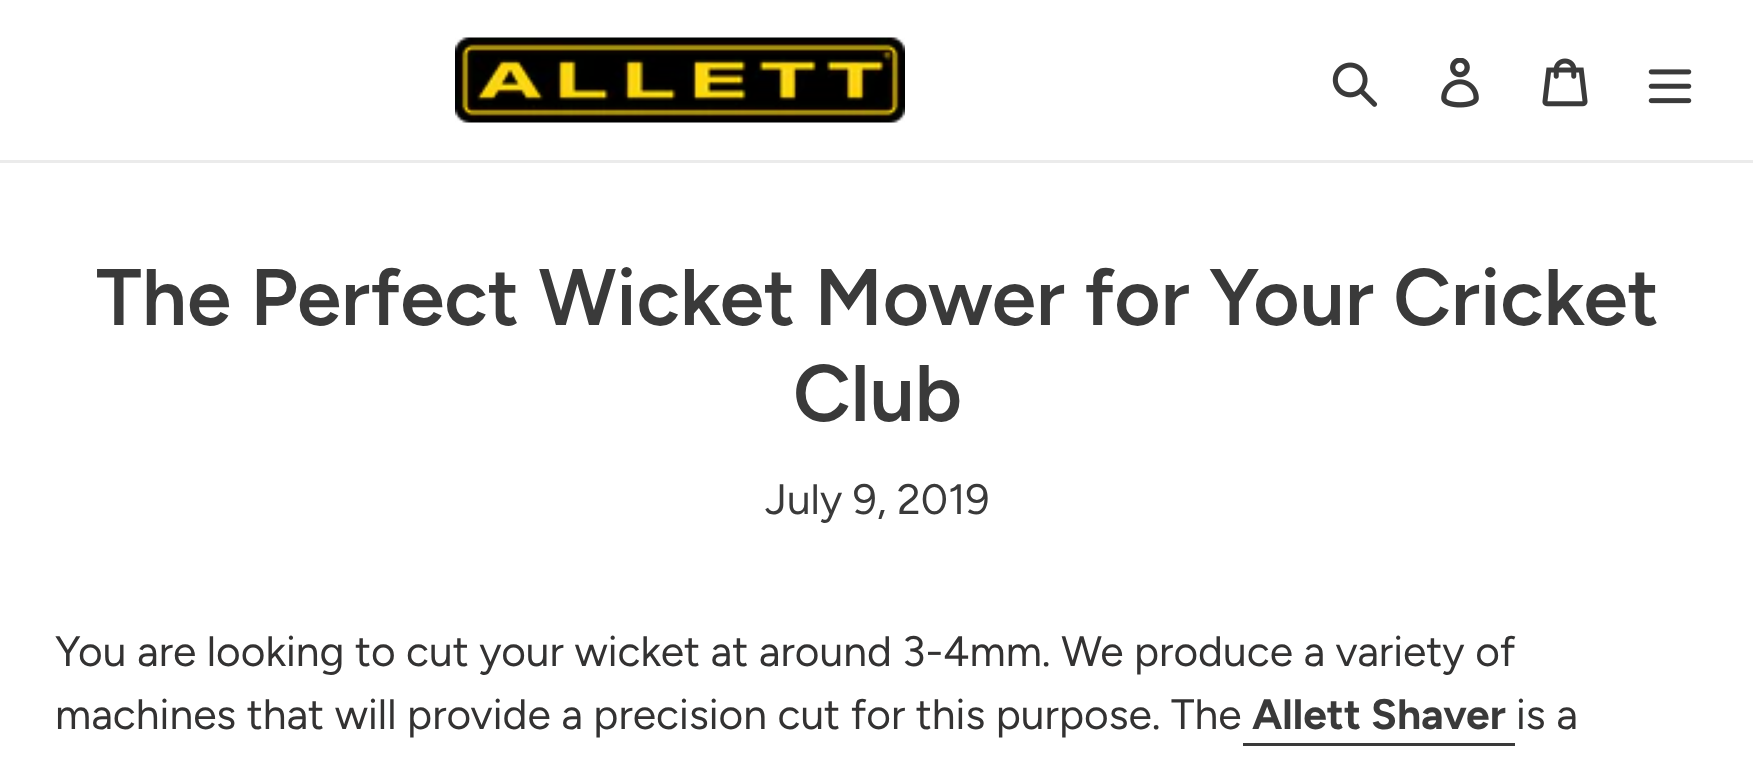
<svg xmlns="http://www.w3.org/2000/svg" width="1753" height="771">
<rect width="100%" height="100%" fill="#fff"/>
<rect y="160" width="1753" height="3" fill="#ebebeb"/>
<image x="455" y="37" width="450" height="86" href="media/1.png"/>
<image x="1332" y="62" width="46" height="45" href="media/2.png"/>
<image x="1441" y="58" width="38" height="50" href="media/3.png"/>
<image x="1542" y="58" width="46" height="49" href="media/4.png"/>
<image x="1648" y="69" width="44" height="35" href="media/5.png"/>
<text x="96" y="325" style="font-family:Figtree;font-size:80px;font-weight:600;fill:#3a3a3a">The Perfect Wicket Mower for Your Cricket</text>
<text x="793" y="421" style="font-family:Figtree;font-size:80px;font-weight:600;fill:#3a3a3a">Club</text>
<text x="765" y="514" style="font-family:Figtree;font-size:42.5px;fill:#3a3a3a">July 9, 2019</text>
<text x="55" y="666" style="font-family:Figtree;font-size:42.5px;fill:#333232">You are looking to cut your wicket at around 3-4mm. We produce a variety of</text>
<text x="55" y="729" style="font-family:Figtree;font-size:42.5px;fill:#333232">machines that will provide a precision cut for this purpose. The</text>
<text x="1252" y="729" style="font-family:Figtree;font-size:42.5px;font-weight:bold;fill:#3a3a3a">Allett Shaver</text>
<rect x="1243" y="743" width="272" height="3" fill="#3a3a3a"/>
<text x="1516" y="729" style="font-family:Figtree;font-size:42.5px;fill:#333232">is a</text>
</svg>
